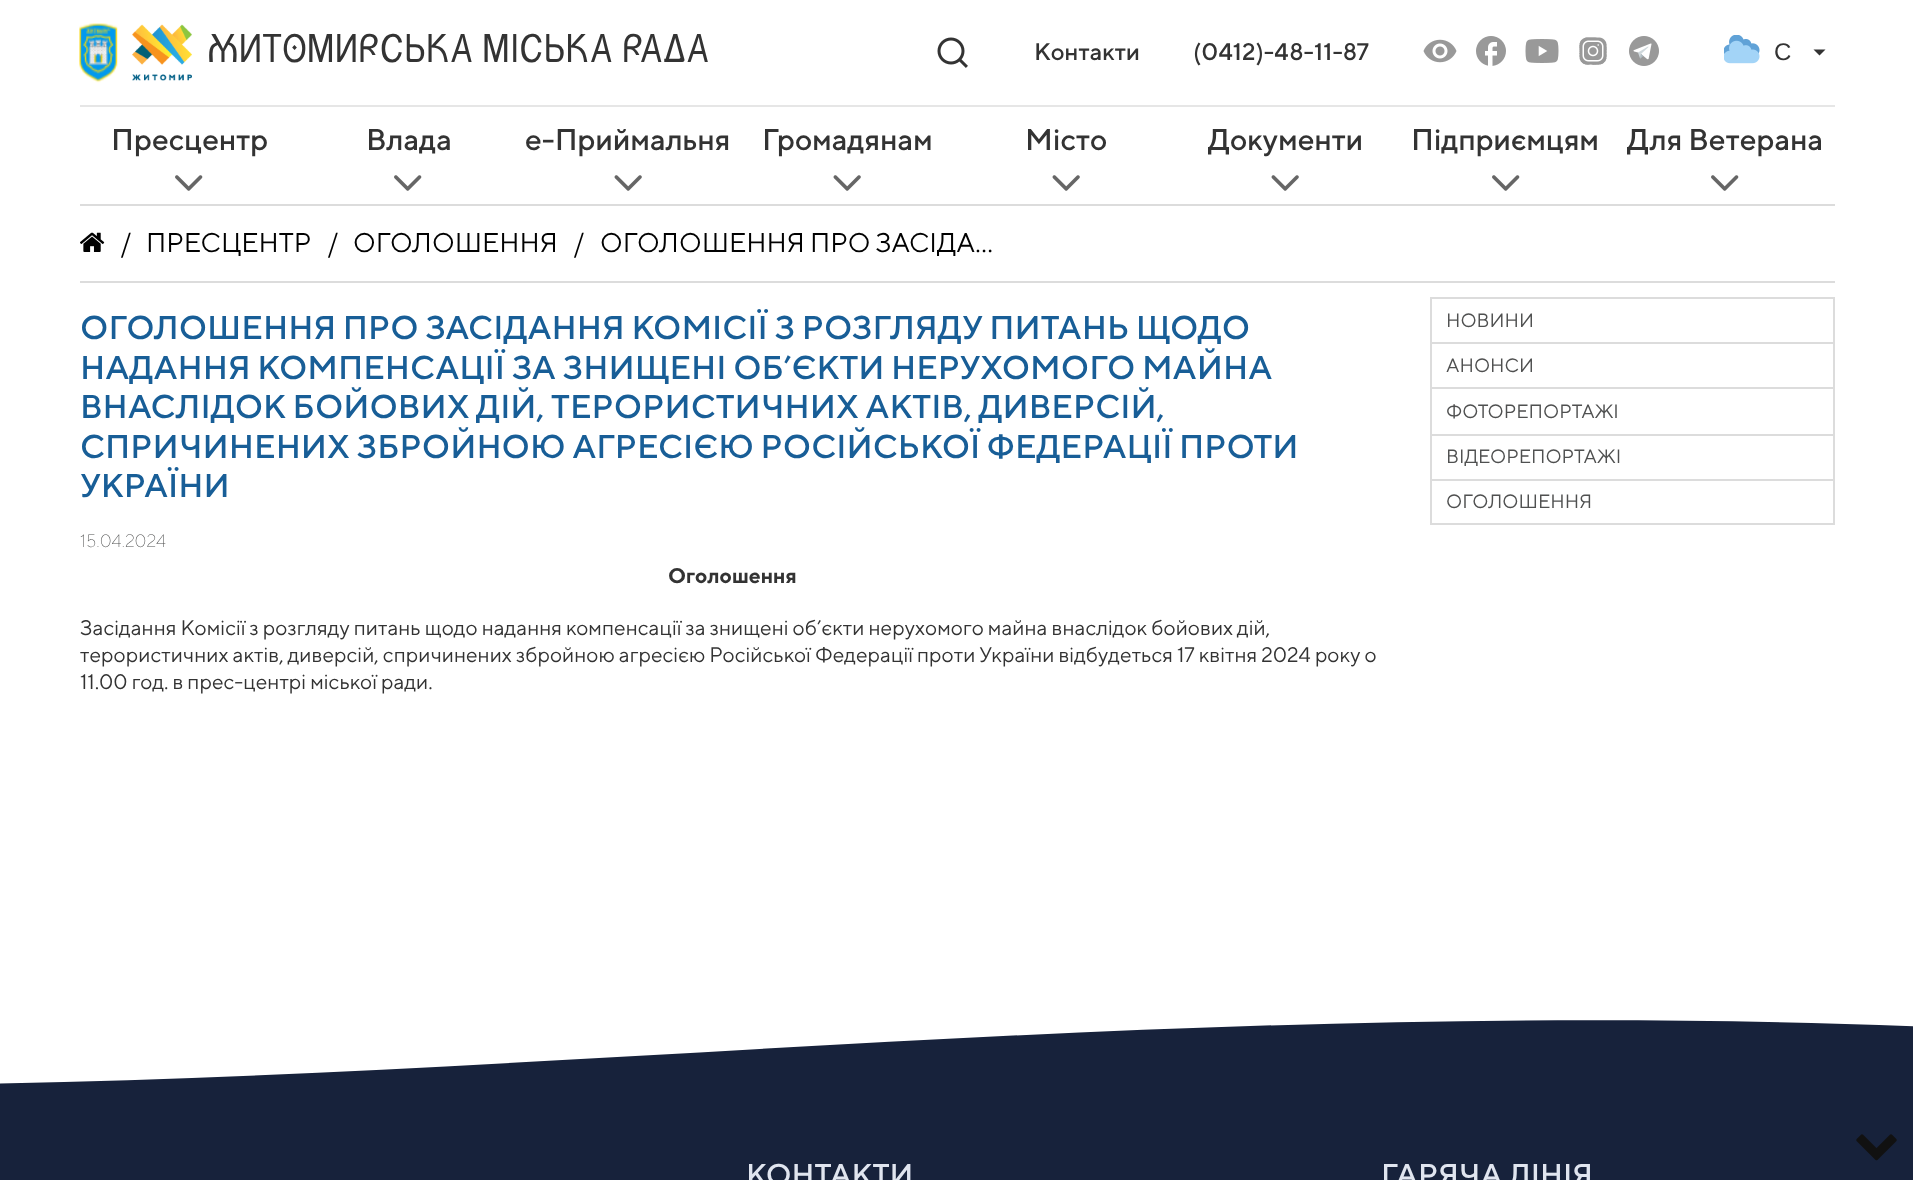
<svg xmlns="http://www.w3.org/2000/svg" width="1913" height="1180">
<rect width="100%" height="100%" fill="#fff"/>
<image x="79" y="23" width="39" height="60" href="media/1.png"/>
<image x="132" y="24" width="60" height="57" href="media/2.png"/>
<text x="207" y="62" style="font-family:'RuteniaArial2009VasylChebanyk';font-size:36px;fill:#333">ЖИТОМИРСЬКА МІСЬКА РАДА</text>
<image x="937" y="37" width="31" height="31" href="media/3.png"/>
<text x="1034" y="60" style="font-family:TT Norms;font-size:24px;font-weight:500;fill:#333">Контакти</text>
<text x="1193" y="60" style="font-family:TT Norms;font-size:24px;font-weight:500;fill:#333">(0412)-48-11-87</text>
<image x="1423" y="39" width="34" height="24" href="media/4.png"/>
<image x="1476" y="36" width="30" height="30" href="media/5.png"/>
<image x="1525" y="39" width="34" height="24" href="media/6.png"/>
<image x="1579" y="37" width="28" height="28" href="media/7.png"/>
<image x="1629" y="36" width="30" height="30" href="media/8.png"/>
<image x="1724" y="35" width="36" height="29" href="media/9.png"/>
<text x="1774" y="60" style="font-family:Liberation Sans;font-size:24px;fill:#333">C</text>
<path d="M1813.5 49.5h12l-6 6z" fill="#333"/>
<rect x="80" y="105" width="1755" height="2" fill="#e6e6e6"/>
<text x="111" y="150" style="font-family:TT Norms;font-size:30px;font-weight:500;fill:#333">Пресцентр</text>
<image x="175" y="175" width="28" height="16" href="media/10.png"/>
<text x="366" y="150" style="font-family:TT Norms;font-size:30px;font-weight:500;fill:#333">Влада</text>
<image x="394" y="175" width="28" height="16" href="media/10.png"/>
<text x="525" y="150" style="font-family:TT Norms;font-size:30px;font-weight:500;fill:#333">е-Приймальня</text>
<image x="614" y="175" width="28" height="16" href="media/11.png"/>
<text x="762" y="150" style="font-family:TT Norms;font-size:30px;font-weight:500;fill:#333">Громадянам</text>
<image x="833" y="175" width="28" height="16" href="media/11.png"/>
<text x="1025" y="150" style="font-family:TT Norms;font-size:30px;font-weight:500;fill:#333">Місто</text>
<image x="1052" y="175" width="28" height="16" href="media/11.png"/>
<text x="1208" y="150" style="font-family:TT Norms;font-size:30px;font-weight:500;fill:#333">Документи</text>
<image x="1271" y="175" width="28" height="16" href="media/11.png"/>
<text x="1411" y="150" style="font-family:TT Norms;font-size:30px;font-weight:500;fill:#333">Підприємцям</text>
<image x="1492" y="175" width="28" height="16" href="media/10.png"/>
<text x="1627" y="150" style="font-family:TT Norms;font-size:30px;font-weight:500;fill:#333">Для Ветерана</text>
<image x="1711" y="175" width="28" height="16" href="media/10.png"/>
<rect x="80" y="204" width="1755" height="2" fill="#dcdcdc"/>
<rect x="80" y="281" width="1755" height="2" fill="#dcdcdc"/>
<image x="80" y="232" width="25" height="20" href="media/12.png"/>
<text x="120" y="252" style="font-family:TT Norms;font-size:27px;fill:#010101">/</text>
<text x="146" y="252" style="font-family:TT Norms;font-size:27px;fill:#010101">ПРЕСЦЕНТР</text>
<text x="327" y="252" style="font-family:TT Norms;font-size:27px;fill:#010101">/</text>
<text x="353" y="252" style="font-family:TT Norms;font-size:27px;fill:#010101">ОГОЛОШЕННЯ</text>
<text x="573" y="252" style="font-family:TT Norms;font-size:27px;fill:#010101">/</text>
<text x="600" y="252" style="font-family:TT Norms;font-size:27px;fill:#010101">ОГОЛОШЕННЯ ПРО ЗАСІДА…</text>
<text x="80" y="339" style="font-family:TT Norms;font-size:33px;font-weight:500;fill:#185e97">ОГОЛОШЕННЯ ПРО ЗАСІДАННЯ КОМІСІЇ З РОЗГЛЯДУ ПИТАНЬ ЩОДО</text>
<text x="80" y="379" style="font-family:TT Norms;font-size:33px;font-weight:500;fill:#185e97">НАДАННЯ КОМПЕНСАЦІЇ ЗА ЗНИЩЕНІ ОБ’ЄКТИ НЕРУХОМОГО МАЙНА</text>
<text x="80" y="418" style="font-family:TT Norms;font-size:33px;font-weight:500;fill:#185e97">ВНАСЛІДОК БОЙОВИХ ДІЙ, ТЕРОРИСТИЧНИХ АКТІВ, ДИВЕРСІЙ,</text>
<text x="80" y="458" style="font-family:TT Norms;font-size:33px;font-weight:500;fill:#185e97">СПРИЧИНЕНИХ ЗБРОЙНОЮ АГРЕСІЄЮ РОСІЙСЬКОЇ ФЕДЕРАЦІЇ ПРОТИ</text>
<text x="80" y="497" style="font-family:TT Norms;font-size:33px;font-weight:500;fill:#185e97">УКРАЇНИ</text>
<text x="80" y="547" style="font-family:TT Norms;font-size:18px;font-weight:200;fill:#4f5050">15.04.2024</text>
<text x="668" y="583" style="font-family:TT Norms;font-size:21px;font-weight:bold;fill:#333">Оголошення</text>
<text x="80" y="635" style="font-family:TT Norms;font-size:21px;fill:#333">Засідання Комісії з розгляду питань щодо надання компенсації за знищені об’єкти нерухомого майна внаслідок бойових дій,</text>
<text x="80" y="662" style="font-family:TT Norms;font-size:21px;fill:#333">терористичних актів, диверсій, спричинених збройною агресією Російської Федерації проти України відбудеться 17 квітня 2024 року о</text>
<text x="80" y="689" style="font-family:TT Norms;font-size:21px;fill:#333">11.00 год. в прес-центрі міської ради.</text>
<rect x="1431" y="298" width="403" height="226" fill="none" stroke="#dcdcdc" stroke-width="2"/>
<rect x="1431" y="342" width="402" height="2" fill="#dcdcdc"/>
<text x="1446" y="327" style="font-family:TT Norms;font-size:19.25px;fill:#4f5050">НОВИНИ</text>
<rect x="1431" y="387" width="402" height="2" fill="#dcdcdc"/>
<text x="1446" y="372" style="font-family:TT Norms;font-size:19.25px;fill:#4f5050">АНОНСИ</text>
<rect x="1431" y="434" width="402" height="2" fill="#dcdcdc"/>
<text x="1446" y="418" style="font-family:TT Norms;font-size:19.25px;fill:#4f5050">ФОТОРЕПОРТАЖІ</text>
<rect x="1431" y="479" width="402" height="2" fill="#dcdcdc"/>
<text x="1446" y="463" style="font-family:TT Norms;font-size:19.25px;fill:#4f5050">ВІДЕОРЕПОРТАЖІ</text>
<text x="1446" y="508" style="font-family:TT Norms;font-size:19.25px;fill:#4f5050">ОГОЛОШЕННЯ</text>
<path d="M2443 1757v-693c-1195-127-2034 69-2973 9v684z" fill="#17223b"/>
<image x="1856" y="1134" width="41" height="27" href="media/13.png"/>
<text x="746" y="1185" style="font-family:TT Norms;font-size:30px;font-weight:500;fill:#e0e5ef">КОНТАКТИ</text>
<text x="1381" y="1185" style="font-family:TT Norms;font-size:30px;font-weight:500;fill:#e0e5ef">ГАРЯЧА ЛІНІЯ</text>
</svg>
